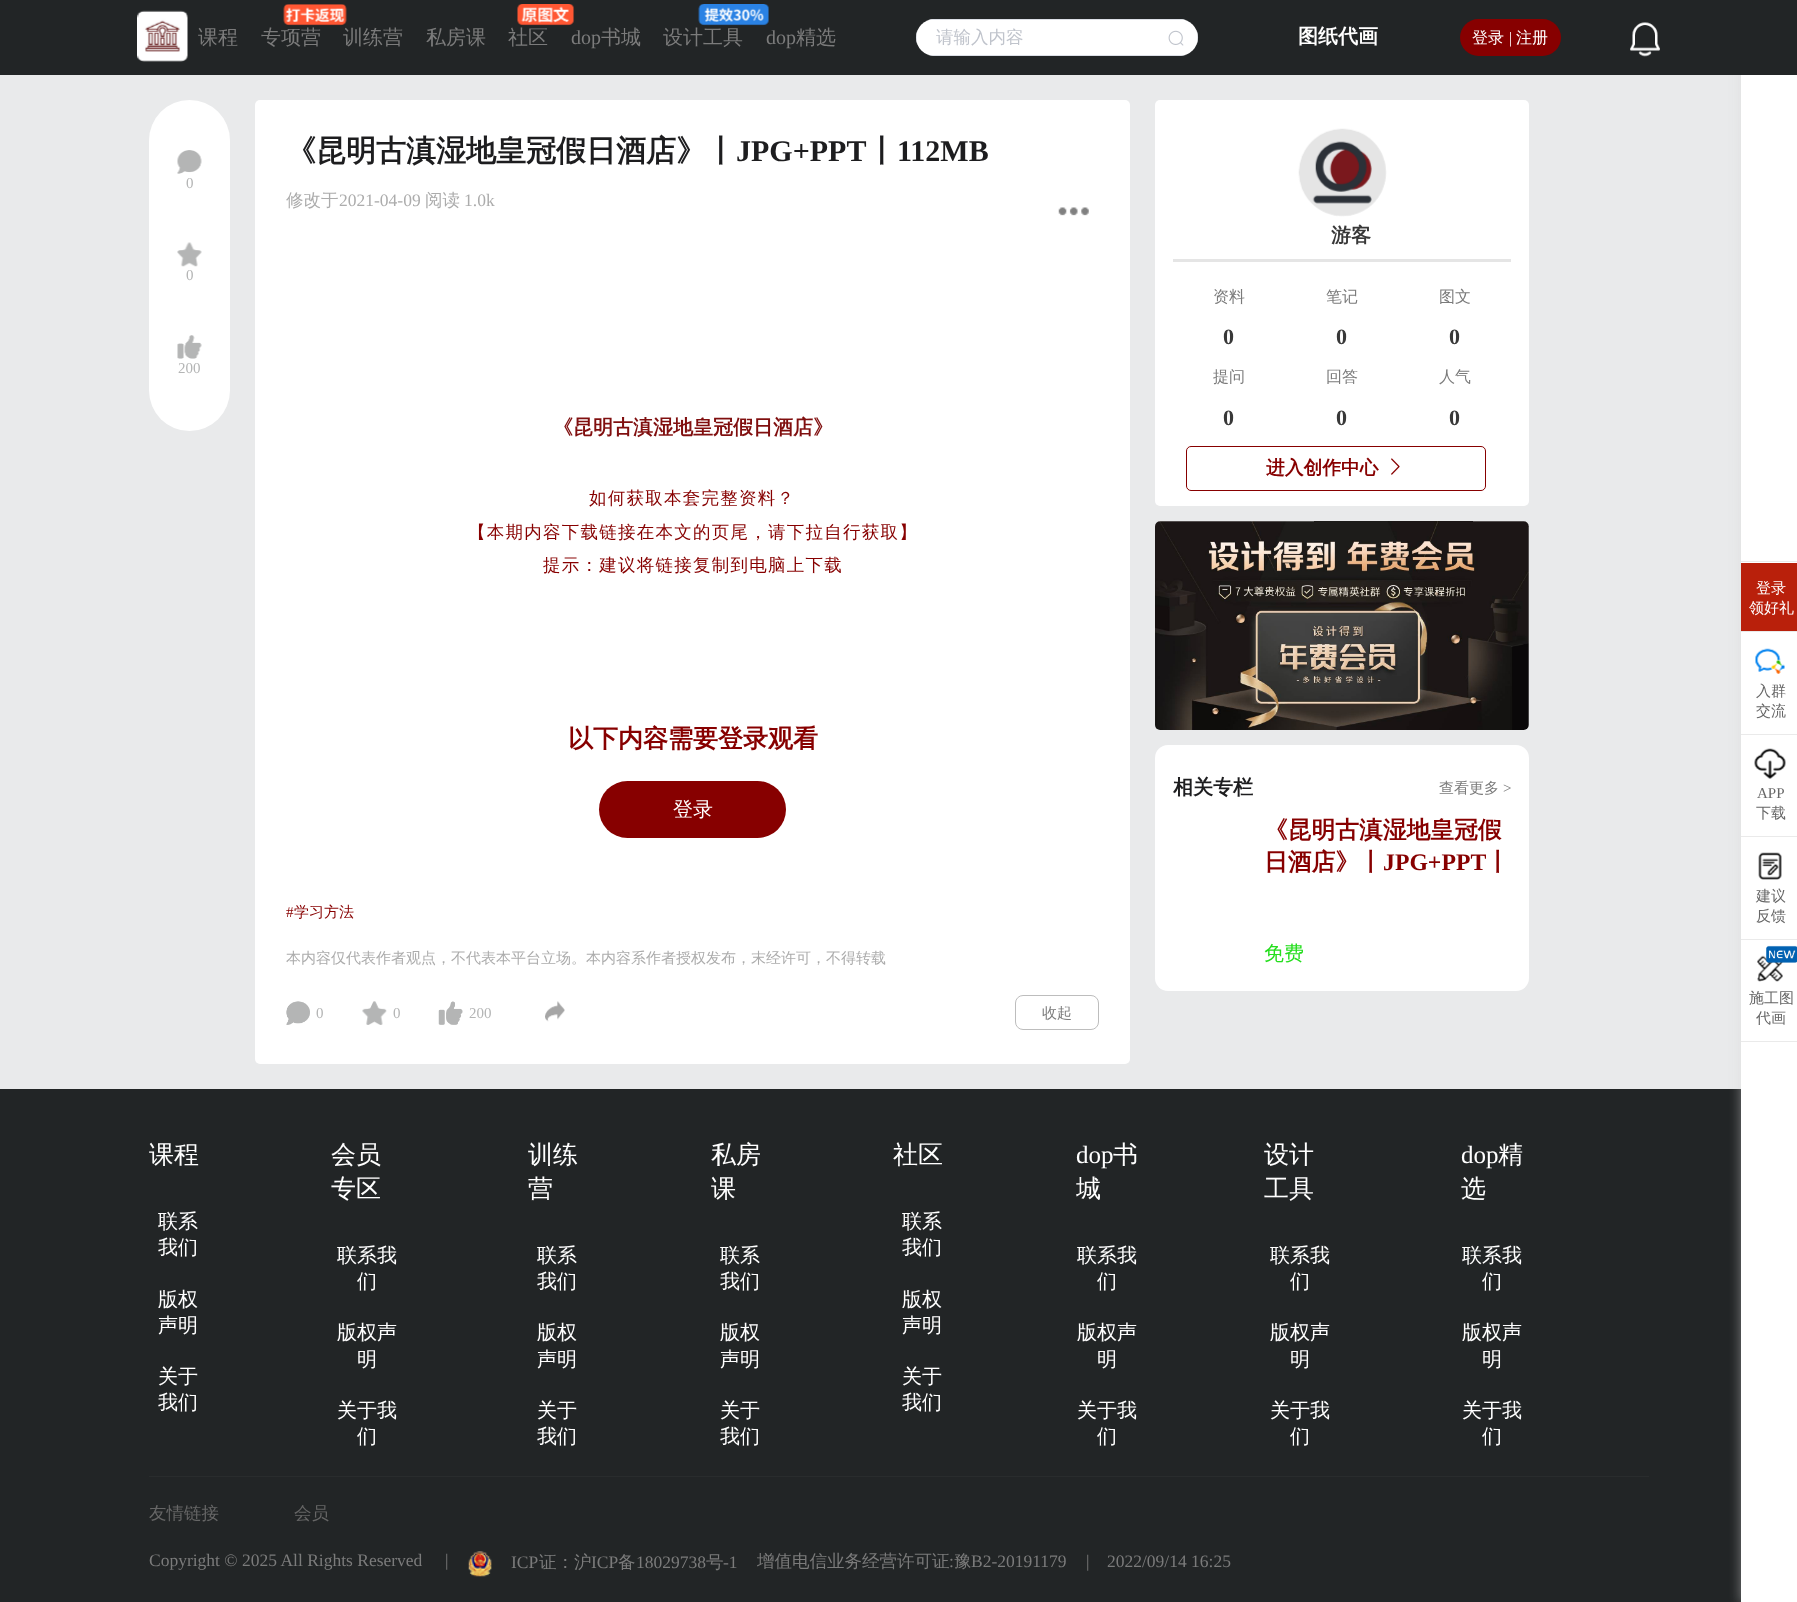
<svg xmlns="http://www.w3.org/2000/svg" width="1797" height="1602">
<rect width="100%" height="100%" fill="#e9eaeb"/>
<rect y="1089" width="1741" height="513" fill="#222526"/>
<rect x="1740" width="56" height="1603" fill="#d6d6d670" filter="blur(6px)"/>
<rect width="1797" height="75" fill="#222526"/>
<image x="137" y="10" width="51" height="52" href="media/1.png"/>
<text x="198" y="44" style="font-family:WenQuanYi Zen Hei;font-size:20px;font-weight:500;fill:#7b7b7b">课程</text>
<image x="283" y="4" width="64" height="22" href="media/2.png"/>
<text x="261" y="44" style="font-family:WenQuanYi Zen Hei;font-size:20px;font-weight:500;fill:#7b7b7b">专项营</text>
<text x="343" y="44" style="font-family:WenQuanYi Zen Hei;font-size:20px;font-weight:500;fill:#7b7b7b">训练营</text>
<text x="426" y="44" style="font-family:WenQuanYi Zen Hei;font-size:20px;font-weight:500;fill:#7b7b7b">私房课</text>
<image x="517" y="4" width="58" height="22" href="media/3.png"/>
<text x="508" y="44" style="font-family:WenQuanYi Zen Hei;font-size:20px;font-weight:500;fill:#7b7b7b">社区</text>
<text x="571" y="44" style="font-family:Liberation Serif;font-size:20px;fill:#7b7b7b">dop</text>
<text x="601" y="44" style="font-family:WenQuanYi Zen Hei;font-size:20px;font-weight:500;fill:#7b7b7b">书城</text>
<image x="698" y="4" width="71" height="22" href="media/4.png"/>
<text x="663" y="44" style="font-family:WenQuanYi Zen Hei;font-size:20px;font-weight:500;fill:#7b7b7b">设计工具</text>
<text x="766" y="44" style="font-family:Liberation Serif;font-size:20px;fill:#7b7b7b">dop</text>
<text x="796" y="44" style="font-family:WenQuanYi Zen Hei;font-size:20px;font-weight:500;fill:#7b7b7b">精选</text>
<rect x="916" y="19" width="282" height="37" rx="18.5" fill="#fff"/>
<path d="M934 56h246l6-1h-258zm-17-12c-1-4-1-9 0-13zm17-25l-6 1h258l-6-1zm263 12v13c1-4 1-9 0-13z" fill="#dcdfe6" fill-rule="evenodd"/>
<text x="936" y="43" style="font-family:WenQuanYi Zen Hei;font-size:17.5px;font-weight:500;fill:#c0c4cc">请输入内容</text>
<image x="1168" y="30" width="16" height="16" href="media/5.png"/>
<text x="1298" y="43" style="font-family:WenQuanYi Zen Hei;font-size:20px;font-weight:bold;fill:#fff">图纸代画</text>
<rect x="1460" y="19" width="101" height="37" rx="18.5" fill="#870000"/>
<text x="1472" y="43" style="font-family:WenQuanYi Zen Hei;font-size:16px;font-weight:500;fill:#fff">登录</text>
<text x="1509" y="43" style="font-family:Liberation Serif;font-size:16px;fill:#fff">|</text>
<text x="1516" y="43" style="font-family:WenQuanYi Zen Hei;font-size:16px;font-weight:500;fill:#fff">注册</text>
<image x="1630" y="22" width="30" height="35" href="media/6.png"/>
<rect x="149" y="100" width="81" height="331" rx="40.5" fill="#fff"/>
<image x="177" y="150" width="25" height="24" href="media/7.png"/>
<text x="186" y="188" style="font-family:Liberation Serif;font-size:15px;fill:#b4b5b5">0</text>
<image x="177" y="242" width="25" height="25" href="media/8.png"/>
<text x="186" y="280" style="font-family:Liberation Serif;font-size:15px;fill:#b4b5b5">0</text>
<image x="177" y="335" width="25" height="24" href="media/9.png"/>
<text x="178" y="373" style="font-family:Liberation Serif;font-size:15px;fill:#b4b5b5">200</text>
<rect x="255" y="100" width="875" height="964" rx="5" fill="#fff"/>
<text x="286" y="161" style="font-family:WenQuanYi Zen Hei;font-size:30px;font-weight:bold;fill:#1d1d1f">《昆明古滇湿地皇冠假日酒店》丨</text>
<text x="736" y="161" style="font-family:Liberation Serif;font-size:30px;font-weight:bold;fill:#1d1d1f">JPG+PPT</text>
<text x="867" y="161" style="font-family:WenQuanYi Zen Hei;font-size:30px;font-weight:bold;fill:#1d1d1f">丨</text>
<text x="897" y="161" style="font-family:Liberation Serif;font-size:30px;font-weight:bold;fill:#1d1d1f">112MB</text>
<text x="286" y="206" style="font-family:WenQuanYi Zen Hei;font-size:17.5px;font-weight:500;fill:#acacac">修改于</text>
<text x="339" y="206" style="font-family:Liberation Serif;font-size:17.5px;fill:#acacac">2021-04-09</text>
<text x="425" y="206" style="font-family:WenQuanYi Zen Hei;font-size:17.5px;font-weight:500;fill:#acacac">阅读</text>
<text x="464" y="206" style="font-family:Liberation Serif;font-size:17.5px;fill:#acacac">1.0k</text>
<image x="1058" y="207" width="31" height="9" href="media/10.png"/>
<text x="553" y="434" style="font-family:WenQuanYi Zen Hei;font-size:20px;font-weight:bold;fill:#800f0f">《昆明古滇湿地皇冠假日酒店》</text>
<text x="589" y="504" style="font-family:WenQuanYi Zen Hei;font-size:17.5px;font-weight:500;letter-spacing:1.25px;fill:#870000">如何获取本套完整资料？</text>
<text x="468" y="538" style="font-family:WenQuanYi Zen Hei;font-size:17.5px;font-weight:500;letter-spacing:1.25px;fill:#870000">【本期内容下载链接在本文的页尾，请下拉自行获取】</text>
<text x="543" y="571" style="font-family:WenQuanYi Zen Hei;font-size:17.5px;font-weight:500;letter-spacing:1.25px;fill:#870000">提示：建议将链接复制到电脑上下载</text>
<text x="568" y="747" style="font-family:WenQuanYi Zen Hei;font-size:25px;font-weight:bold;fill:#870000">以下内容需要登录观看</text>
<rect x="599" y="781" width="187" height="57" rx="28.5" fill="#870000"/>
<text x="673" y="816" style="font-family:WenQuanYi Zen Hei;font-size:20px;font-weight:500;fill:#fff">登录</text>
<text x="286" y="917" style="font-family:Liberation Serif;font-size:15px;fill:#870000">#</text>
<text x="294" y="917" style="font-family:WenQuanYi Zen Hei;font-size:15px;font-weight:500;fill:#870000">学习方法</text>
<text x="286" y="963" style="font-family:WenQuanYi Zen Hei;font-size:15px;font-weight:500;fill:#acacac">本内容仅代表作者观点，不代表本平台立场。本内容系作者授权发布，末经许可，不得转载</text>
<image x="286" y="1001" width="24" height="24" href="media/11.png"/>
<text x="316" y="1018" style="font-family:Liberation Serif;font-size:15px;fill:#b4b5b5">0</text>
<image x="362" y="1001" width="25" height="24" href="media/12.png"/>
<text x="393" y="1018" style="font-family:Liberation Serif;font-size:15px;fill:#b4b5b5">0</text>
<image x="438" y="1001" width="25" height="24" href="media/13.png"/>
<text x="469" y="1018" style="font-family:Liberation Serif;font-size:15px;fill:#b4b5b5">200</text>
<image x="545" y="1001" width="20" height="21" href="media/14.png"/>
<rect x="1015.5" y="995.5" width="83" height="34" rx="7.5" fill="none" stroke="#bdbdbd"/>
<text x="1042" y="1018" style="font-family:WenQuanYi Zen Hei;font-size:15px;font-weight:500;fill:#7b7b7b">收起</text>
<rect x="1155" y="100" width="374" height="406" rx="5" fill="#fff"/>
<image x="1298" y="128" width="89" height="89" href="media/15.png"/>
<text x="1331" y="242" style="font-family:WenQuanYi Zen Hei;font-size:20px;font-weight:bold;fill:#383838">游客</text>
<rect x="1173" y="259" width="338" height="3" fill="#e5e5e5"/>
<text x="1213" y="302" style="font-family:WenQuanYi Zen Hei;font-size:16px;font-weight:500;fill:#7b7b7b">资料</text>
<text x="1223" y="344" style="font-family:Liberation Serif;font-size:22px;font-weight:bold;fill:#383838">0</text>
<text x="1213" y="382" style="font-family:WenQuanYi Zen Hei;font-size:16px;font-weight:500;fill:#7b7b7b">提问</text>
<text x="1223" y="425" style="font-family:Liberation Serif;font-size:22px;font-weight:bold;fill:#383838">0</text>
<text x="1326" y="302" style="font-family:WenQuanYi Zen Hei;font-size:16px;font-weight:500;fill:#7b7b7b">笔记</text>
<text x="1336" y="344" style="font-family:Liberation Serif;font-size:22px;font-weight:bold;fill:#383838">0</text>
<text x="1326" y="382" style="font-family:WenQuanYi Zen Hei;font-size:16px;font-weight:500;fill:#7b7b7b">回答</text>
<text x="1336" y="425" style="font-family:Liberation Serif;font-size:22px;font-weight:bold;fill:#383838">0</text>
<text x="1439" y="302" style="font-family:WenQuanYi Zen Hei;font-size:16px;font-weight:500;fill:#7b7b7b">图文</text>
<text x="1449" y="344" style="font-family:Liberation Serif;font-size:22px;font-weight:bold;fill:#383838">0</text>
<text x="1439" y="382" style="font-family:WenQuanYi Zen Hei;font-size:16px;font-weight:500;fill:#7b7b7b">人气</text>
<text x="1449" y="425" style="font-family:Liberation Serif;font-size:22px;font-weight:bold;fill:#383838">0</text>
<rect x="1186.5" y="446.5" width="299" height="44" rx="4.5" fill="none" stroke="#870000"/>
<text x="1266" y="474" style="font-family:WenQuanYi Zen Hei;font-size:18.75px;font-weight:bold;fill:#870000">进入创作中心</text>
<image x="1391" y="458" width="9" height="17" href="media/16.png"/>
<rect x="1155" y="521" width="374" height="209" rx="5" fill="#fff"/>
<image x="1155" y="521" width="374" height="209" href="media/17.png"/>
<rect x="1155" y="745" width="374" height="246" rx="13" fill="#fff"/>
<text x="1173" y="794" style="font-family:WenQuanYi Zen Hei;font-size:20px;font-weight:bold;fill:#1d1d1f">相关专栏</text>
<text x="1439" y="793" style="font-family:WenQuanYi Zen Hei;font-size:15px;font-weight:500;fill:#7b7b7b">查看更多</text>
<text x="1503" y="793" style="font-family:Liberation Serif;font-size:15px;fill:#7b7b7b">&gt;</text>
<text x="1264" y="838" style="font-family:WenQuanYi Zen Hei;font-size:23.75px;font-weight:bold;fill:#870000">《昆明古滇湿地皇冠假</text>
<text x="1264" y="870" style="font-family:WenQuanYi Zen Hei;font-size:23.75px;font-weight:bold;fill:#870000">日酒店》丨</text>
<text x="1383" y="870" style="font-family:Liberation Serif;font-size:23.75px;font-weight:bold;fill:#870000">JPG+PPT</text>
<text x="1486" y="870" style="font-family:WenQuanYi Zen Hei;font-size:23.75px;font-weight:bold;fill:#870000">丨</text>
<text x="1264" y="960" style="font-family:WenQuanYi Zen Hei;font-size:20px;font-weight:500;fill:#24de1d">免费</text>
<rect x="1741" y="75" width="56" height="1527" fill="#fff"/>
<rect x="1741" y="561" width="56" height="1" fill="#eaeaea"/>
<rect x="1741" y="631" width="56" height="1" fill="#eaeaea"/>
<rect x="1741" y="563" width="56" height="68" fill="#b9200b"/>
<text x="1756" y="593" style="font-family:WenQuanYi Zen Hei;font-size:15px;font-weight:500;fill:#fff">登录</text>
<text x="1749" y="613" style="font-family:WenQuanYi Zen Hei;font-size:15px;font-weight:500;fill:#fff">领好礼</text>
<rect x="1741" y="734" width="56" height="1" fill="#eaeaea"/>
<image x="1755" y="648" width="30" height="26" href="media/18.png"/>
<text x="1756" y="696" style="font-family:WenQuanYi Zen Hei;font-size:15px;font-weight:500;fill:#666">入群</text>
<text x="1756" y="716" style="font-family:WenQuanYi Zen Hei;font-size:15px;font-weight:500;fill:#666">交流</text>
<rect x="1741" y="836" width="56" height="1" fill="#eaeaea"/>
<image x="1754" y="748" width="32" height="31" href="media/19.png"/>
<text x="1757" y="798" style="font-family:Liberation Serif;font-size:15px;fill:#666">APP</text>
<text x="1756" y="818" style="font-family:WenQuanYi Zen Hei;font-size:15px;font-weight:500;fill:#666">下载</text>
<rect x="1741" y="939" width="56" height="1" fill="#eaeaea"/>
<image x="1758" y="852" width="24" height="28" href="media/20.png"/>
<text x="1756" y="901" style="font-family:WenQuanYi Zen Hei;font-size:15px;font-weight:500;fill:#666">建议</text>
<text x="1756" y="921" style="font-family:WenQuanYi Zen Hei;font-size:15px;font-weight:500;fill:#666">反馈</text>
<rect x="1741" y="1041" width="56" height="1" fill="#eaeaea"/>
<image x="1757" y="955" width="26" height="27" href="media/22.png"/>
<image x="1766" y="945" width="31" height="18" href="media/21.png"/>
<text x="1749" y="1003" style="font-family:WenQuanYi Zen Hei;font-size:15px;font-weight:500;fill:#666">施工图</text>
<text x="1756" y="1023" style="font-family:WenQuanYi Zen Hei;font-size:15px;font-weight:500;fill:#666">代画</text>
<rect x="149" y="1476" width="1500" height="1" fill="#292c2d"/>
<text x="149" y="1163" style="font-family:WenQuanYi Zen Hei;font-size:25px;font-weight:500;fill:#fff">课程</text>
<text x="158" y="1228" style="font-family:WenQuanYi Zen Hei;font-size:20px;font-weight:500;fill:#fff">联系</text>
<text x="158" y="1254" style="font-family:WenQuanYi Zen Hei;font-size:20px;font-weight:500;fill:#fff">我们</text>
<text x="158" y="1306" style="font-family:WenQuanYi Zen Hei;font-size:20px;font-weight:500;fill:#fff">版权</text>
<text x="158" y="1332" style="font-family:WenQuanYi Zen Hei;font-size:20px;font-weight:500;fill:#fff">声明</text>
<text x="158" y="1383" style="font-family:WenQuanYi Zen Hei;font-size:20px;font-weight:500;fill:#fff">关于</text>
<text x="158" y="1409" style="font-family:WenQuanYi Zen Hei;font-size:20px;font-weight:500;fill:#fff">我们</text>
<text x="331" y="1163" style="font-family:WenQuanYi Zen Hei;font-size:25px;font-weight:500;fill:#fff">会员</text>
<text x="331" y="1197" style="font-family:WenQuanYi Zen Hei;font-size:25px;font-weight:500;fill:#fff">专区</text>
<text x="337" y="1262" style="font-family:WenQuanYi Zen Hei;font-size:20px;font-weight:500;fill:#fff">联系我</text>
<text x="357" y="1288" style="font-family:WenQuanYi Zen Hei;font-size:20px;font-weight:500;fill:#fff">们</text>
<text x="337" y="1339" style="font-family:WenQuanYi Zen Hei;font-size:20px;font-weight:500;fill:#fff">版权声</text>
<text x="357" y="1366" style="font-family:WenQuanYi Zen Hei;font-size:20px;font-weight:500;fill:#fff">明</text>
<text x="337" y="1417" style="font-family:WenQuanYi Zen Hei;font-size:20px;font-weight:500;fill:#fff">关于我</text>
<text x="357" y="1443" style="font-family:WenQuanYi Zen Hei;font-size:20px;font-weight:500;fill:#fff">们</text>
<text x="528" y="1163" style="font-family:WenQuanYi Zen Hei;font-size:25px;font-weight:500;fill:#fff">训练</text>
<text x="528" y="1197" style="font-family:WenQuanYi Zen Hei;font-size:25px;font-weight:500;fill:#fff">营</text>
<text x="537" y="1262" style="font-family:WenQuanYi Zen Hei;font-size:20px;font-weight:500;fill:#fff">联系</text>
<text x="537" y="1288" style="font-family:WenQuanYi Zen Hei;font-size:20px;font-weight:500;fill:#fff">我们</text>
<text x="537" y="1339" style="font-family:WenQuanYi Zen Hei;font-size:20px;font-weight:500;fill:#fff">版权</text>
<text x="537" y="1366" style="font-family:WenQuanYi Zen Hei;font-size:20px;font-weight:500;fill:#fff">声明</text>
<text x="537" y="1417" style="font-family:WenQuanYi Zen Hei;font-size:20px;font-weight:500;fill:#fff">关于</text>
<text x="537" y="1443" style="font-family:WenQuanYi Zen Hei;font-size:20px;font-weight:500;fill:#fff">我们</text>
<text x="711" y="1163" style="font-family:WenQuanYi Zen Hei;font-size:25px;font-weight:500;fill:#fff">私房</text>
<text x="711" y="1197" style="font-family:WenQuanYi Zen Hei;font-size:25px;font-weight:500;fill:#fff">课</text>
<text x="720" y="1262" style="font-family:WenQuanYi Zen Hei;font-size:20px;font-weight:500;fill:#fff">联系</text>
<text x="720" y="1288" style="font-family:WenQuanYi Zen Hei;font-size:20px;font-weight:500;fill:#fff">我们</text>
<text x="720" y="1339" style="font-family:WenQuanYi Zen Hei;font-size:20px;font-weight:500;fill:#fff">版权</text>
<text x="720" y="1366" style="font-family:WenQuanYi Zen Hei;font-size:20px;font-weight:500;fill:#fff">声明</text>
<text x="720" y="1417" style="font-family:WenQuanYi Zen Hei;font-size:20px;font-weight:500;fill:#fff">关于</text>
<text x="720" y="1443" style="font-family:WenQuanYi Zen Hei;font-size:20px;font-weight:500;fill:#fff">我们</text>
<text x="893" y="1163" style="font-family:WenQuanYi Zen Hei;font-size:25px;font-weight:500;fill:#fff">社区</text>
<text x="902" y="1228" style="font-family:WenQuanYi Zen Hei;font-size:20px;font-weight:500;fill:#fff">联系</text>
<text x="902" y="1254" style="font-family:WenQuanYi Zen Hei;font-size:20px;font-weight:500;fill:#fff">我们</text>
<text x="902" y="1306" style="font-family:WenQuanYi Zen Hei;font-size:20px;font-weight:500;fill:#fff">版权</text>
<text x="902" y="1332" style="font-family:WenQuanYi Zen Hei;font-size:20px;font-weight:500;fill:#fff">声明</text>
<text x="902" y="1383" style="font-family:WenQuanYi Zen Hei;font-size:20px;font-weight:500;fill:#fff">关于</text>
<text x="902" y="1409" style="font-family:WenQuanYi Zen Hei;font-size:20px;font-weight:500;fill:#fff">我们</text>
<text x="1076" y="1163" style="font-family:Liberation Serif;font-size:25px;fill:#fff">dop</text>
<text x="1113" y="1163" style="font-family:WenQuanYi Zen Hei;font-size:25px;font-weight:500;fill:#fff">书</text>
<text x="1076" y="1197" style="font-family:WenQuanYi Zen Hei;font-size:25px;font-weight:500;fill:#fff">城</text>
<text x="1077" y="1262" style="font-family:WenQuanYi Zen Hei;font-size:20px;font-weight:500;fill:#fff">联系我</text>
<text x="1097" y="1288" style="font-family:WenQuanYi Zen Hei;font-size:20px;font-weight:500;fill:#fff">们</text>
<text x="1077" y="1339" style="font-family:WenQuanYi Zen Hei;font-size:20px;font-weight:500;fill:#fff">版权声</text>
<text x="1097" y="1366" style="font-family:WenQuanYi Zen Hei;font-size:20px;font-weight:500;fill:#fff">明</text>
<text x="1077" y="1417" style="font-family:WenQuanYi Zen Hei;font-size:20px;font-weight:500;fill:#fff">关于我</text>
<text x="1097" y="1443" style="font-family:WenQuanYi Zen Hei;font-size:20px;font-weight:500;fill:#fff">们</text>
<text x="1264" y="1163" style="font-family:WenQuanYi Zen Hei;font-size:25px;font-weight:500;fill:#fff">设计</text>
<text x="1264" y="1197" style="font-family:WenQuanYi Zen Hei;font-size:25px;font-weight:500;fill:#fff">工具</text>
<text x="1270" y="1262" style="font-family:WenQuanYi Zen Hei;font-size:20px;font-weight:500;fill:#fff">联系我</text>
<text x="1290" y="1288" style="font-family:WenQuanYi Zen Hei;font-size:20px;font-weight:500;fill:#fff">们</text>
<text x="1270" y="1339" style="font-family:WenQuanYi Zen Hei;font-size:20px;font-weight:500;fill:#fff">版权声</text>
<text x="1290" y="1366" style="font-family:WenQuanYi Zen Hei;font-size:20px;font-weight:500;fill:#fff">明</text>
<text x="1270" y="1417" style="font-family:WenQuanYi Zen Hei;font-size:20px;font-weight:500;fill:#fff">关于我</text>
<text x="1290" y="1443" style="font-family:WenQuanYi Zen Hei;font-size:20px;font-weight:500;fill:#fff">们</text>
<text x="1461" y="1163" style="font-family:Liberation Serif;font-size:25px;fill:#fff">dop</text>
<text x="1498" y="1163" style="font-family:WenQuanYi Zen Hei;font-size:25px;font-weight:500;fill:#fff">精</text>
<text x="1461" y="1197" style="font-family:WenQuanYi Zen Hei;font-size:25px;font-weight:500;fill:#fff">选</text>
<text x="1462" y="1262" style="font-family:WenQuanYi Zen Hei;font-size:20px;font-weight:500;fill:#fff">联系我</text>
<text x="1482" y="1288" style="font-family:WenQuanYi Zen Hei;font-size:20px;font-weight:500;fill:#fff">们</text>
<text x="1462" y="1339" style="font-family:WenQuanYi Zen Hei;font-size:20px;font-weight:500;fill:#fff">版权声</text>
<text x="1482" y="1366" style="font-family:WenQuanYi Zen Hei;font-size:20px;font-weight:500;fill:#fff">明</text>
<text x="1462" y="1417" style="font-family:WenQuanYi Zen Hei;font-size:20px;font-weight:500;fill:#fff">关于我</text>
<text x="1482" y="1443" style="font-family:WenQuanYi Zen Hei;font-size:20px;font-weight:500;fill:#fff">们</text>
<text x="149" y="1519" style="font-family:WenQuanYi Zen Hei;font-size:17.5px;font-weight:500;fill:#666">友情链接</text>
<text x="294" y="1519" style="font-family:WenQuanYi Zen Hei;font-size:17.5px;font-weight:500;fill:#666">会员</text>
<text x="149" y="1566" style="font-family:Liberation Serif;font-size:17.5px;fill:#7b7b7b">Copyright © 2025 All Rights Reserved</text>
<text x="445" y="1566" style="font-family:Liberation Serif;font-size:17.5px;fill:#7b7b7b">|</text>
<image x="468" y="1551" width="24" height="26" href="media/23.png"/>
<text x="511" y="1568" style="font-family:Liberation Serif;font-size:17.5px;fill:#7b7b7b">ICP</text>
<text x="539" y="1568" style="font-family:WenQuanYi Zen Hei;font-size:17.5px;font-weight:500;fill:#7b7b7b">证：沪</text>
<text x="591" y="1568" style="font-family:Liberation Serif;font-size:17.5px;fill:#7b7b7b">ICP</text>
<text x="618" y="1568" style="font-family:WenQuanYi Zen Hei;font-size:17.5px;font-weight:500;fill:#7b7b7b">备</text>
<text x="636" y="1568" style="font-family:Liberation Serif;font-size:17.5px;fill:#7b7b7b">18029738</text>
<text x="706" y="1568" style="font-family:WenQuanYi Zen Hei;font-size:17.5px;font-weight:500;fill:#7b7b7b">号</text>
<text x="723" y="1568" style="font-family:Liberation Serif;font-size:17.5px;fill:#7b7b7b">-1</text>
<text x="757" y="1567" style="font-family:WenQuanYi Zen Hei;font-size:17.5px;font-weight:500;fill:#7b7b7b">增值电信业务经营许可证</text>
<text x="949" y="1567" style="font-family:Liberation Serif;font-size:17.5px;fill:#7b7b7b">:</text>
<text x="954" y="1567" style="font-family:WenQuanYi Zen Hei;font-size:17.5px;font-weight:500;fill:#7b7b7b">豫</text>
<text x="971" y="1567" style="font-family:Liberation Serif;font-size:17.5px;fill:#7b7b7b">B2-20191179</text>
<text x="1086" y="1567" style="font-family:Liberation Serif;font-size:17.5px;fill:#7b7b7b">|</text>
<text x="1107" y="1567" style="font-family:Liberation Serif;font-size:17.5px;fill:#7b7b7b">2022/09/14 16:25</text>
</svg>
